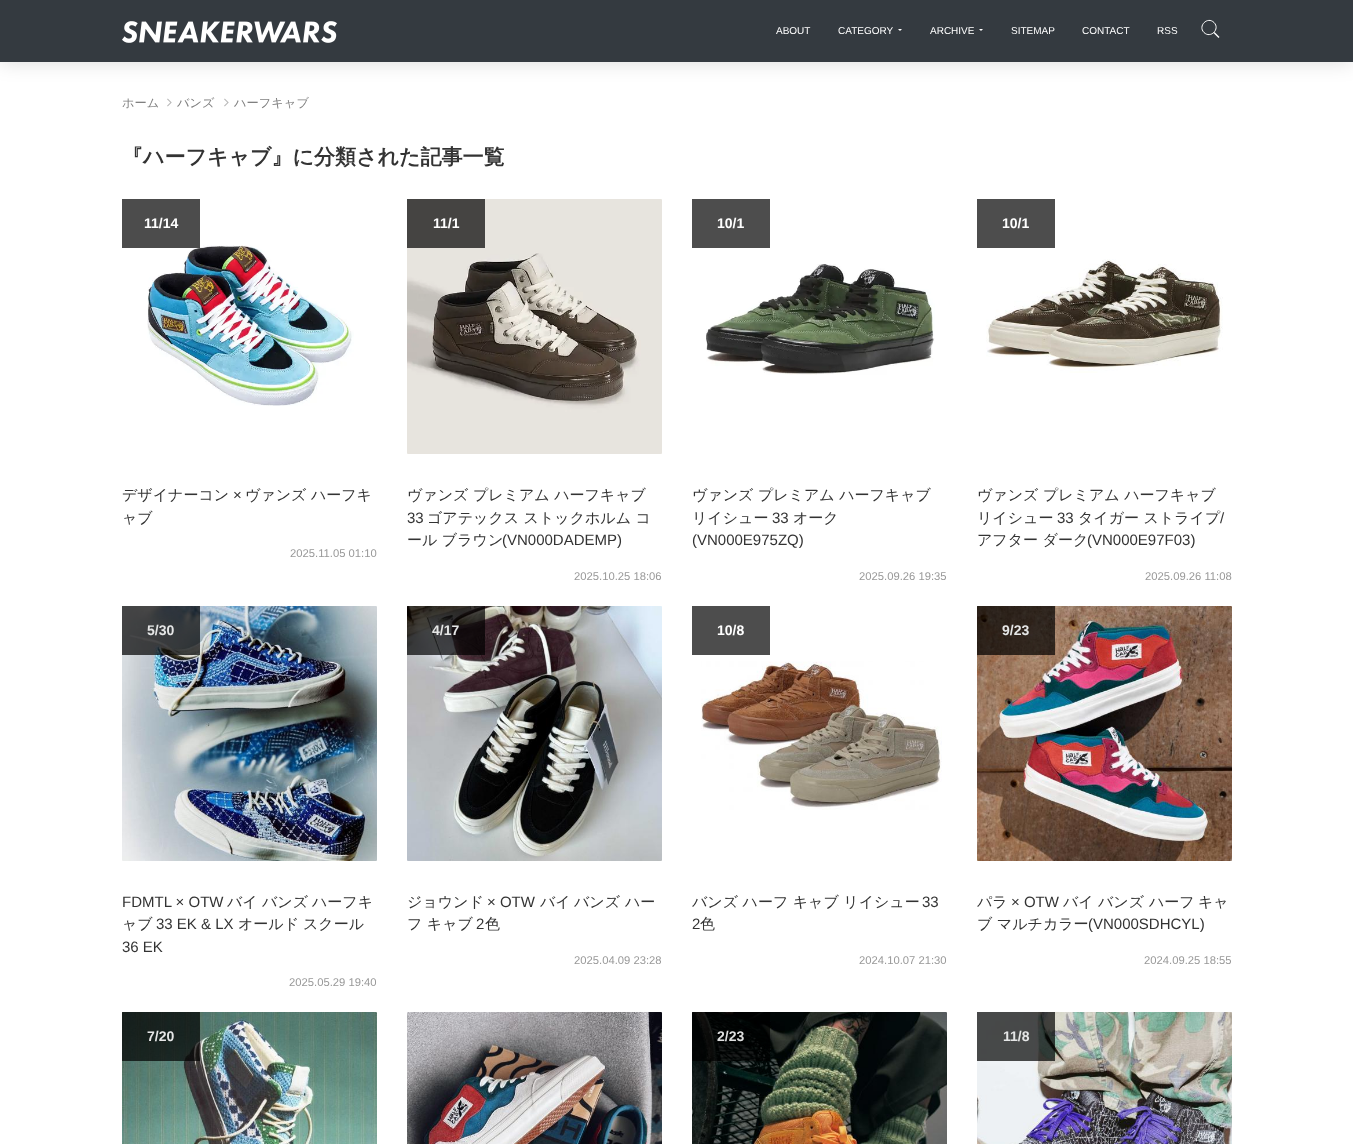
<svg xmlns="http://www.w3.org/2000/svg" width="1353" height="1144">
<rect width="100%" height="100%" fill="#fff"/>
<rect width="1353" height="62" fill="#00000026" filter="blur(10px)"/>
<rect width="1353" height="62" fill="#343a40"/>
<image x="122" y="21" width="215" height="22" href="media/1.png"/>
<text x="776" y="34" style="font-family:Liberation Sans;font-size:10px;fill:#fff">ABOUT</text>
<text x="838" y="34" style="font-family:Liberation Sans;font-size:10px;fill:#fff">CATEGORY</text>
<path d="M898 29h4l-2 2z" fill="#fff"/>
<text x="930" y="34" style="font-family:Liberation Sans;font-size:10px;fill:#fff">ARCHIVE</text>
<path d="M979 29h4l-2 2z" fill="#fff"/>
<text x="1011" y="34" style="font-family:Liberation Sans;font-size:10px;fill:#fff">SITEMAP</text>
<text x="1082" y="34" style="font-family:Liberation Sans;font-size:10px;fill:#fff">CONTACT</text>
<text x="1157" y="34" style="font-family:Liberation Sans;font-size:10px;fill:#fff">RSS</text>
<path d="M1214 22.5c6.5 6.5-3.5 16.5-10 10c-6.5-6.5 3.5-16.5 10-10z" fill="none" stroke="#fff"/>
<path d="M1213.5 33l1-1l5 5l-1 1z" fill="#fff"/>
<text x="122" y="107" style="font-family:WenQuanYi Zen Hei;font-size:12.25px;font-weight:500;fill:#808080">ホーム</text>
<image x="167" y="98" width="5" height="9" href="media/2.png"/>
<text x="177" y="107" style="font-family:WenQuanYi Zen Hei;font-size:12.25px;font-weight:500;fill:#808080">バンズ</text>
<image x="224" y="98" width="5" height="9" href="media/2.png"/>
<text x="234" y="107" style="font-family:WenQuanYi Zen Hei;font-size:12.25px;font-weight:500;fill:#808080">ハーフキャブ</text>
<text x="122" y="164" style="font-family:WenQuanYi Zen Hei;font-size:21px;font-weight:bold;fill:#333">『ハーフキャブ』に分類された記事一覧</text>
<image x="147" y="245" width="207" height="161" href="media/3.png"/>
<rect x="122" y="199" width="78" height="49" fill="#000000b3"/>
<text x="144" y="228" style="font-family:Liberation Sans;font-size:14px;font-weight:bold;fill:#fff">11/14</text>
<text x="122" y="500" style="font-family:WenQuanYi Zen Hei;font-size:15px;font-weight:500;fill:#333">デザイナーコン</text>
<text x="233" y="500" style="font-family:Liberation Sans;font-size:15px;fill:#333">×</text>
<text x="245" y="500" style="font-family:WenQuanYi Zen Hei;font-size:15px;font-weight:500;fill:#333">ヴァンズ ハーフキ</text>
<text x="122" y="523" style="font-family:WenQuanYi Zen Hei;font-size:15px;font-weight:500;fill:#333">ャブ</text>
<text x="290" y="557" style="font-family:Liberation Sans;font-size:11.25px;fill:#999">2025.11.05 01:10</text>
<image x="407" y="199" width="255" height="255" href="media/4.png"/>
<rect x="407" y="199" width="78" height="49" fill="#000000b3"/>
<text x="433" y="228" style="font-family:Liberation Sans;font-size:14px;font-weight:bold;fill:#fff">11/1</text>
<text x="407" y="500" style="font-family:WenQuanYi Zen Hei;font-size:15px;font-weight:500;fill:#333">ヴァンズ プレミアム ハーフキャブ</text>
<text x="407" y="523" style="font-family:Liberation Sans;font-size:15px;fill:#333">33</text>
<text x="427" y="523" style="font-family:WenQuanYi Zen Hei;font-size:15px;font-weight:500;fill:#333">ゴアテックス ストックホルム コ</text>
<text x="407" y="545" style="font-family:WenQuanYi Zen Hei;font-size:15px;font-weight:500;fill:#333">ール ブラウン</text>
<text x="502" y="545" style="font-family:Liberation Sans;font-size:15px;fill:#333">(VN000DADEMP)</text>
<text x="574" y="580" style="font-family:Liberation Sans;font-size:11.25px;fill:#999">2025.10.25 18:06</text>
<rect x="692" y="199" width="78" height="49" fill="#4d4d4d"/>
<text x="717" y="228" style="font-family:Liberation Sans;font-size:14px;font-weight:bold;fill:#fff">10/1</text>
<image x="706" y="264" width="229" height="111" href="media/5.png"/>
<text x="692" y="500" style="font-family:WenQuanYi Zen Hei;font-size:15px;font-weight:500;fill:#333">ヴァンズ プレミアム ハーフキャブ</text>
<text x="692" y="523" style="font-family:WenQuanYi Zen Hei;font-size:15px;font-weight:500;fill:#333">リイシュー</text>
<text x="772" y="523" style="font-family:Liberation Sans;font-size:15px;fill:#333">33</text>
<text x="793" y="523" style="font-family:WenQuanYi Zen Hei;font-size:15px;font-weight:500;fill:#333">オーク</text>
<text x="692" y="545" style="font-family:Liberation Sans;font-size:15px;fill:#333">(VN000E975ZQ)</text>
<text x="859" y="580" style="font-family:Liberation Sans;font-size:11.25px;fill:#999">2025.09.26 19:35</text>
<rect x="977" y="199" width="78" height="49" fill="#4d4d4d"/>
<text x="1002" y="228" style="font-family:Liberation Sans;font-size:14px;font-weight:bold;fill:#fff">10/1</text>
<image x="986" y="259" width="237" height="114" href="media/6.png"/>
<text x="977" y="500" style="font-family:WenQuanYi Zen Hei;font-size:15px;font-weight:500;fill:#333">ヴァンズ プレミアム ハーフキャブ</text>
<text x="977" y="523" style="font-family:WenQuanYi Zen Hei;font-size:15px;font-weight:500;fill:#333">リイシュー</text>
<text x="1057" y="523" style="font-family:Liberation Sans;font-size:15px;fill:#333">33</text>
<text x="1078" y="523" style="font-family:WenQuanYi Zen Hei;font-size:15px;font-weight:500;fill:#333">タイガー ストライプ</text>
<text x="1220" y="523" style="font-family:Liberation Sans;font-size:15px;fill:#333">/</text>
<text x="977" y="545" style="font-family:WenQuanYi Zen Hei;font-size:15px;font-weight:500;fill:#333">アフター ダーク</text>
<text x="1087" y="545" style="font-family:Liberation Sans;font-size:15px;fill:#333">(VN000E97F03)</text>
<text x="1145" y="580" style="font-family:Liberation Sans;font-size:11.25px;fill:#999">2025.09.26 11:08</text>
<image x="122" y="606" width="255" height="255" href="media/7.png"/>
<rect x="122" y="606" width="78" height="49" fill="#000000b3"/>
<text x="147" y="635" style="font-family:Liberation Sans;font-size:14px;font-weight:bold;fill:#e5e6e6">5/30</text>
<text x="122" y="907" style="font-family:Liberation Sans;font-size:15px;fill:#333">FDMTL × OTW</text>
<text x="227" y="907" style="font-family:WenQuanYi Zen Hei;font-size:15px;font-weight:500;fill:#333">バイ</text>
<text x="262" y="907" style="font-family:WenQuanYi Zen Hei;font-size:15px;font-weight:500;fill:#333">バンズ</text>
<text x="312" y="907" style="font-family:WenQuanYi Zen Hei;font-size:15px;font-weight:500;fill:#333">ハーフキ</text>
<text x="122" y="929" style="font-family:WenQuanYi Zen Hei;font-size:15px;font-weight:500;fill:#333">ャブ</text>
<text x="156" y="929" style="font-family:Liberation Sans;font-size:15px;fill:#333">33 EK &amp; LX</text>
<text x="238" y="929" style="font-family:WenQuanYi Zen Hei;font-size:15px;font-weight:500;fill:#333">オールド</text>
<text x="303" y="929" style="font-family:WenQuanYi Zen Hei;font-size:15px;font-weight:500;fill:#333">スクール</text>
<text x="122" y="952" style="font-family:Liberation Sans;font-size:15px;fill:#333">36 EK</text>
<text x="289" y="986" style="font-family:Liberation Sans;font-size:11.25px;fill:#999">2025.05.29 19:40</text>
<image x="407" y="606" width="255" height="255" href="media/8.png"/>
<rect x="407" y="606" width="78" height="49" fill="#000000b3"/>
<text x="432" y="635" style="font-family:Liberation Sans;font-size:14px;font-weight:bold;fill:#e5e6e6">4/17</text>
<text x="407" y="907" style="font-family:WenQuanYi Zen Hei;font-size:15px;font-weight:500;fill:#333">ジョウンド</text>
<text x="487" y="907" style="font-family:Liberation Sans;font-size:15px;fill:#333">× OTW</text>
<text x="540" y="907" style="font-family:WenQuanYi Zen Hei;font-size:15px;font-weight:500;fill:#333">バイ</text>
<text x="574" y="907" style="font-family:WenQuanYi Zen Hei;font-size:15px;font-weight:500;fill:#333">バンズ</text>
<text x="625" y="907" style="font-family:WenQuanYi Zen Hei;font-size:15px;font-weight:500;fill:#333">ハー</text>
<text x="407" y="929" style="font-family:WenQuanYi Zen Hei;font-size:15px;font-weight:500;fill:#333">フ キャブ</text>
<text x="476" y="929" style="font-family:Liberation Sans;font-size:15px;fill:#333">2</text>
<text x="485" y="929" style="font-family:WenQuanYi Zen Hei;font-size:15px;font-weight:500;fill:#333">色</text>
<text x="574" y="964" style="font-family:Liberation Sans;font-size:11.25px;fill:#999">2025.04.09 23:28</text>
<rect x="692" y="606" width="78" height="49" fill="#4d4d4d"/>
<text x="717" y="635" style="font-family:Liberation Sans;font-size:14px;font-weight:bold;fill:#fff">10/8</text>
<image x="701" y="661" width="241" height="149" href="media/9.png"/>
<text x="692" y="907" style="font-family:WenQuanYi Zen Hei;font-size:15px;font-weight:500;fill:#333">バンズ ハーフ キャブ リイシュー</text>
<text x="922" y="907" style="font-family:Liberation Sans;font-size:15px;fill:#333">33</text>
<text x="692" y="929" style="font-family:Liberation Sans;font-size:15px;fill:#333">2</text>
<text x="700" y="929" style="font-family:WenQuanYi Zen Hei;font-size:15px;font-weight:500;fill:#333">色</text>
<text x="859" y="964" style="font-family:Liberation Sans;font-size:11.25px;fill:#999">2024.10.07 21:30</text>
<image x="977" y="606" width="255" height="255" href="media/10.png"/>
<rect x="977" y="606" width="78" height="49" fill="#000000b3"/>
<text x="1002" y="635" style="font-family:Liberation Sans;font-size:14px;font-weight:bold;fill:#e5e6e6">9/23</text>
<text x="977" y="907" style="font-family:WenQuanYi Zen Hei;font-size:15px;font-weight:500;fill:#333">パラ</text>
<text x="1011" y="907" style="font-family:Liberation Sans;font-size:15px;fill:#333">× OTW</text>
<text x="1063" y="907" style="font-family:WenQuanYi Zen Hei;font-size:15px;font-weight:500;fill:#333">バイ</text>
<text x="1098" y="907" style="font-family:WenQuanYi Zen Hei;font-size:15px;font-weight:500;fill:#333">バンズ</text>
<text x="1149" y="907" style="font-family:WenQuanYi Zen Hei;font-size:15px;font-weight:500;fill:#333">ハーフ</text>
<text x="1198" y="907" style="font-family:WenQuanYi Zen Hei;font-size:15px;font-weight:500;fill:#333">キャ</text>
<text x="977" y="929" style="font-family:WenQuanYi Zen Hei;font-size:15px;font-weight:500;fill:#333">ブ マルチカラー</text>
<text x="1088" y="929" style="font-family:Liberation Sans;font-size:15px;fill:#333">(VN000SDHCYL)</text>
<text x="1144" y="964" style="font-family:Liberation Sans;font-size:11.25px;fill:#999">2024.09.25 18:55</text>
<image x="122" y="1012" width="255" height="132" href="media/11.png"/>
<rect x="122" y="1012" width="78" height="49" fill="#000000b3"/>
<text x="147" y="1041" style="font-family:Liberation Sans;font-size:14px;font-weight:bold;fill:#e5e6e6">7/20</text>
<image x="407" y="1012" width="255" height="132" href="media/12.png"/>
<image x="692" y="1012" width="255" height="132" href="media/13.png"/>
<rect x="692" y="1012" width="78" height="49" fill="#000000b3"/>
<text x="717" y="1041" style="font-family:Liberation Sans;font-size:14px;font-weight:bold;fill:#dedfdf">2/23</text>
<image x="977" y="1012" width="255" height="132" href="media/14.png"/>
<rect x="977" y="1012" width="78" height="49" fill="#000000b3"/>
<text x="1003" y="1041" style="font-family:Liberation Sans;font-size:14px;font-weight:bold;fill:#e5e6e6">11/8</text>
</svg>
